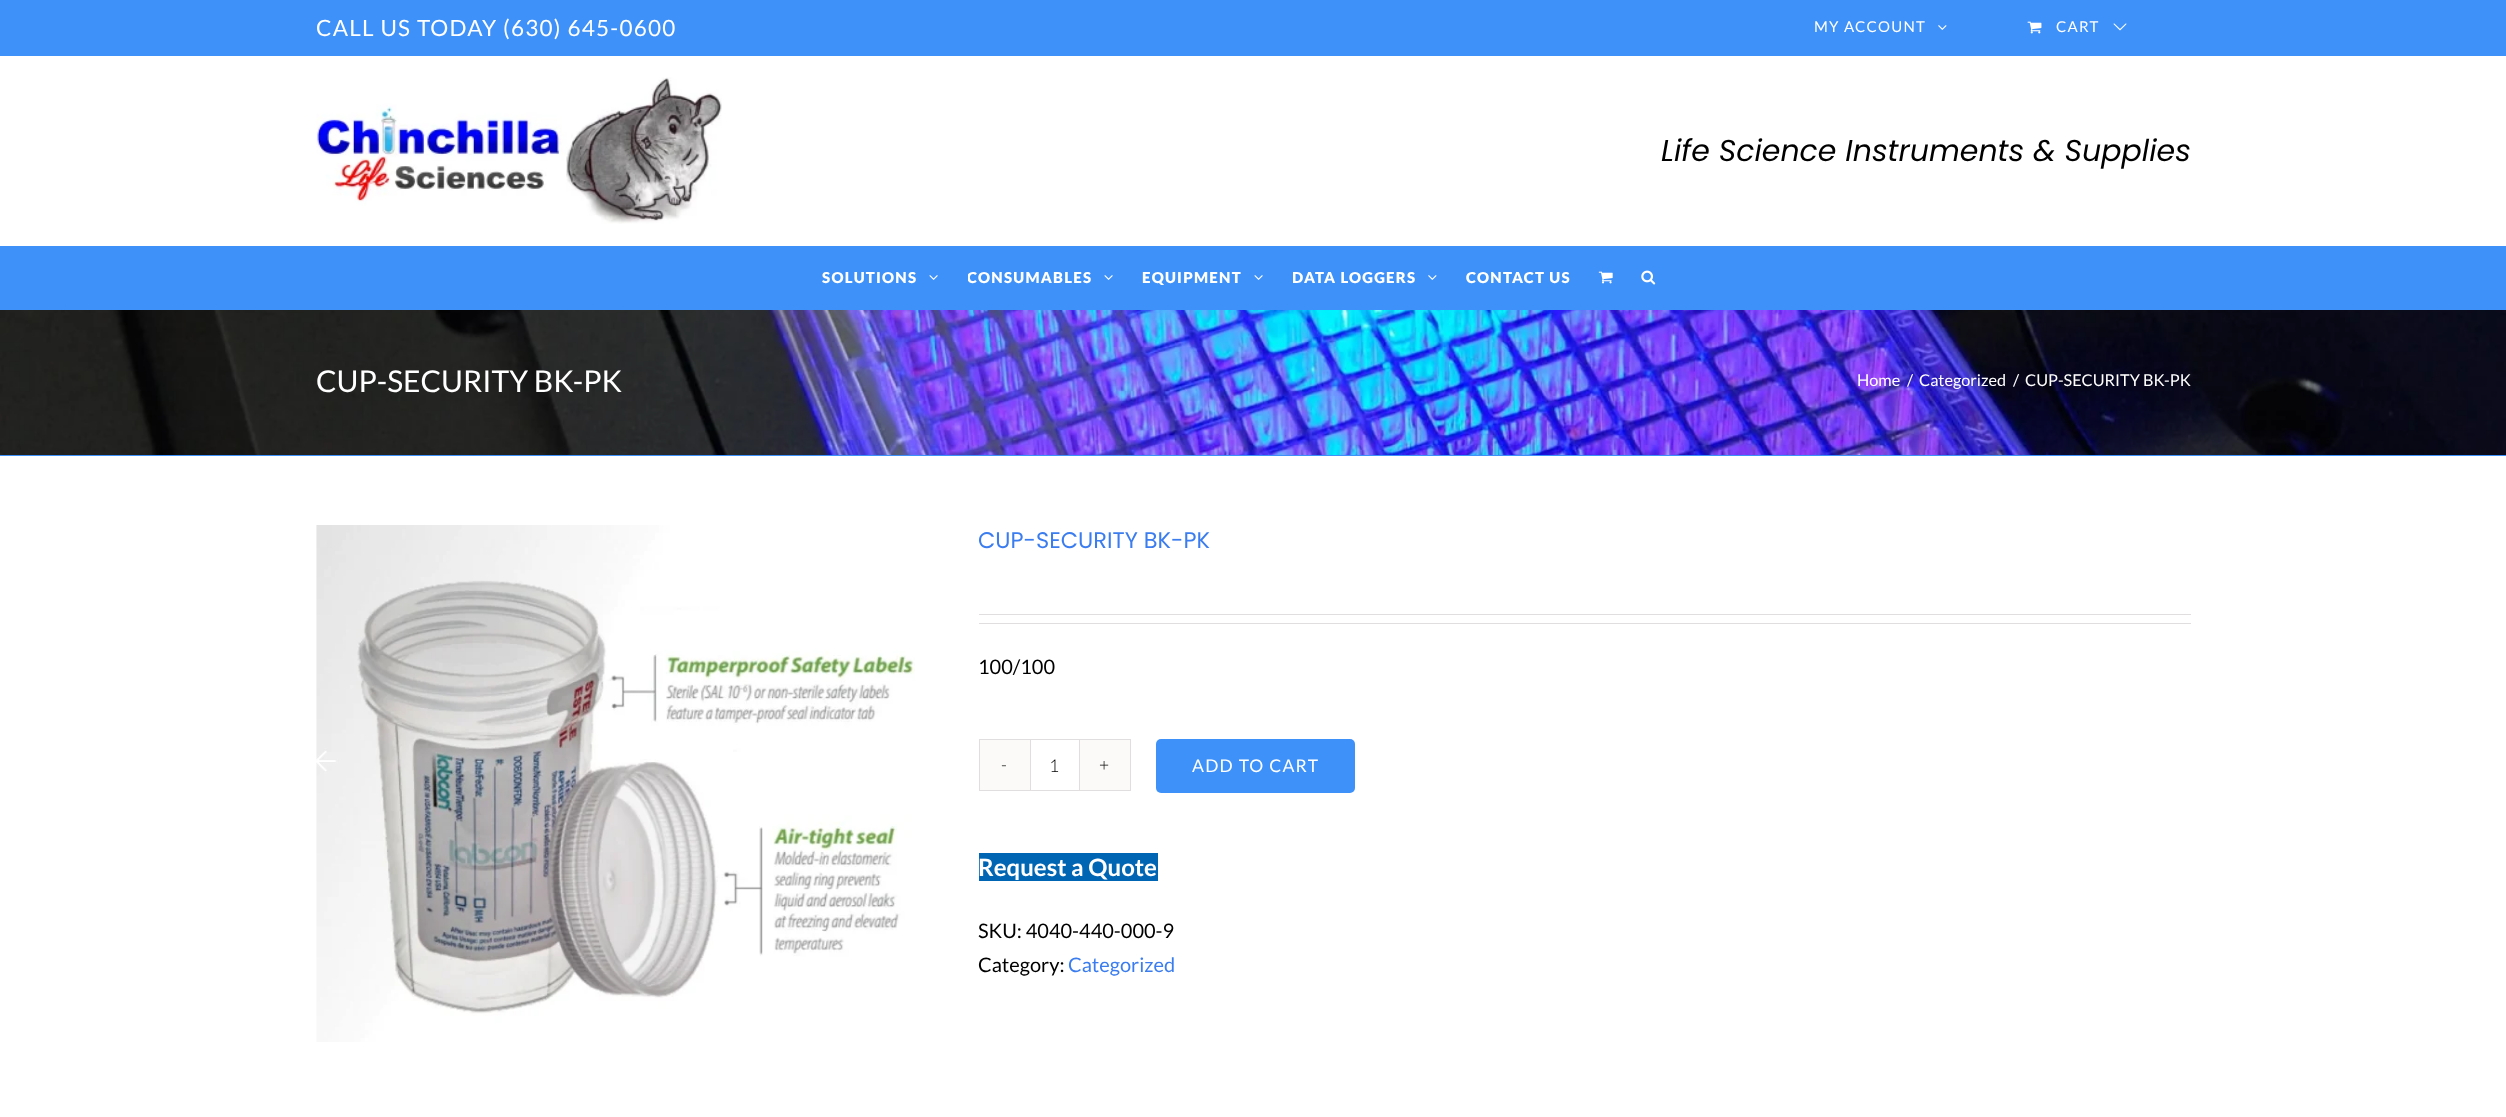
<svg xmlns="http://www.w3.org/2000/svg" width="2506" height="1117">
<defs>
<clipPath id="clip1"><rect x="968" y="246" width="175" height="63"/></clipPath>
<clipPath id="clip2"><rect x="1293" y="246" width="173" height="63"/></clipPath>
</defs>
<rect width="100%" height="100%" fill="#fff"/>
<rect width="2506" height="56" fill="#3f91fa"/>
<text x="316" y="36" style="font-family:Lato;font-size:22.5px;letter-spacing:1.25px;fill:#fff">CALL US TODAY (630) 645-0600</text>
<text x="1814" y="32" style="font-family:Lato;font-size:15px;letter-spacing:1.25px;fill:#fff">MY ACCOUNT</text>
<image x="1938" y="25" width="9" height="5" href="media/1.png"/>
<image x="2027" y="21" width="15" height="13" href="media/2.png"/>
<text x="2056" y="32" style="font-family:Lato;font-size:15px;letter-spacing:1.25px;fill:#fff">CART</text>
<image x="2113" y="23" width="14" height="8" href="media/3.png"/>
<image x="316" y="77" width="406" height="147" href="media/4.png"/>
<text x="1661" y="161" style="font-family:Poppins;font-size:30px;font-style:italic;fill:#000">Life Science Instruments &amp; Supplies</text>
<rect y="246" width="2506" height="64" fill="#3f91fa"/>
<text x="822" y="283" style="font-family:Lato;font-size:15px;font-weight:900;letter-spacing:1.25px;fill:#fff">SOLUTIONS</text>
<image x="929" y="275" width="9" height="5" href="media/5.png"/>
<g clip-path="url(#clip1)">
<text x="967" y="283" style="font-family:Lato;font-size:15px;font-weight:900;letter-spacing:1.25px;fill:#fff">CONSUMABLES</text>
</g>
<image x="1104" y="275" width="9" height="5" href="media/5.png"/>
<text x="1142" y="283" style="font-family:Lato;font-size:15px;font-weight:900;letter-spacing:1.25px;fill:#fff">EQUIPMENT</text>
<image x="1254" y="275" width="9" height="5" href="media/5.png"/>
<g clip-path="url(#clip2)">
<text x="1292" y="283" style="font-family:Lato;font-size:15px;font-weight:900;letter-spacing:1.25px;fill:#fff">DATA LOGGERS</text>
</g>
<image x="1428" y="275" width="9" height="5" href="media/1.png"/>
<text x="1466" y="283" style="font-family:Lato;font-size:15px;font-weight:900;letter-spacing:1.25px;fill:#fff">CONTACT US</text>
<image x="1598" y="271" width="15" height="13" href="media/6.png"/>
<image x="1641" y="270" width="15" height="15" href="media/7.png"/>
<image x="0" y="310" width="2506" height="145" href="media/8.png"/>
<rect y="455" width="2506" height="1" fill="#3f91fa"/>
<text x="316" y="392" style="font-family:Lato;font-size:30px;fill:#fff">CUP-SECURITY BK-PK</text>
<text x="1857" y="386" style="font-family:Lato;font-size:16.25px;fill:#fff">Home</text>
<text x="1907" y="386" style="font-family:Lato;font-size:16.25px;fill:#fff">/</text>
<text x="1919" y="386" style="font-family:Lato;font-size:16.25px;fill:#fff">Categorized</text>
<text x="2013" y="386" style="font-family:Lato;font-size:16.25px;fill:#fff">/</text>
<text x="2025" y="386" style="font-family:Lato;font-size:16.25px;fill:#fff">CUP-SECURITY BK-PK</text>
<image x="316" y="525" width="599" height="517" href="media/9.png"/>
<text x="978" y="548" style="font-family:Poppins;font-size:22.5px;fill:#3b7def">CUP-SECURITY BK-PK</text>
<rect x="979" y="614" width="1212" height="1" fill="#e0dede"/>
<rect x="979" y="623" width="1212" height="1" fill="#e0dede"/>
<text x="978" y="674" style="font-family:Lato;font-size:20px;fill:#000">100/100</text>
<rect x="979.5" y="739.5" width="151" height="51" fill="none" stroke="#e0dede"/>
<rect x="980" y="740" width="50" height="50" fill="#fbfaf9"/>
<text x="1001" y="771" style="font-family:Lato;font-size:17.5px;font-weight:300;fill:#000">-</text>
<rect x="1079" y="740" width="1" height="50" fill="#e0dede"/>
<rect x="1030" y="740" width="1" height="50" fill="#e0dede"/>
<text x="1049" y="772" style="font-family:Lato;font-size:17.5px;font-weight:300;fill:#000">1</text>
<rect x="1080" y="740" width="50" height="50" fill="#fbfaf9"/>
<text x="1099" y="771" style="font-family:Lato;font-size:17.5px;font-weight:300;fill:#000">+</text>
<rect x="1156" y="739" width="199" height="54" rx="5" fill="#3f91fa"/>
<text x="1192" y="772" style="font-family:Lato;font-size:17.5px;letter-spacing:1.25px;fill:#fff">ADD TO CART</text>
<rect x="979" y="853" width="179" height="28" fill="#0066b4"/>
<text x="978" y="876" style="font-family:Lato;font-size:24px;font-weight:bold;fill:#fff">Request a Quote</text>
<text x="978" y="938" style="font-family:Lato;font-size:20px;fill:#000">SKU: 4040-440-000-9</text>
<text x="978" y="972" style="font-family:Lato;font-size:20px;fill:#000">Category:</text>
<text x="1068" y="972" style="font-family:Lato;font-size:20px;fill:#3b7def">Categorized</text>
</svg>
